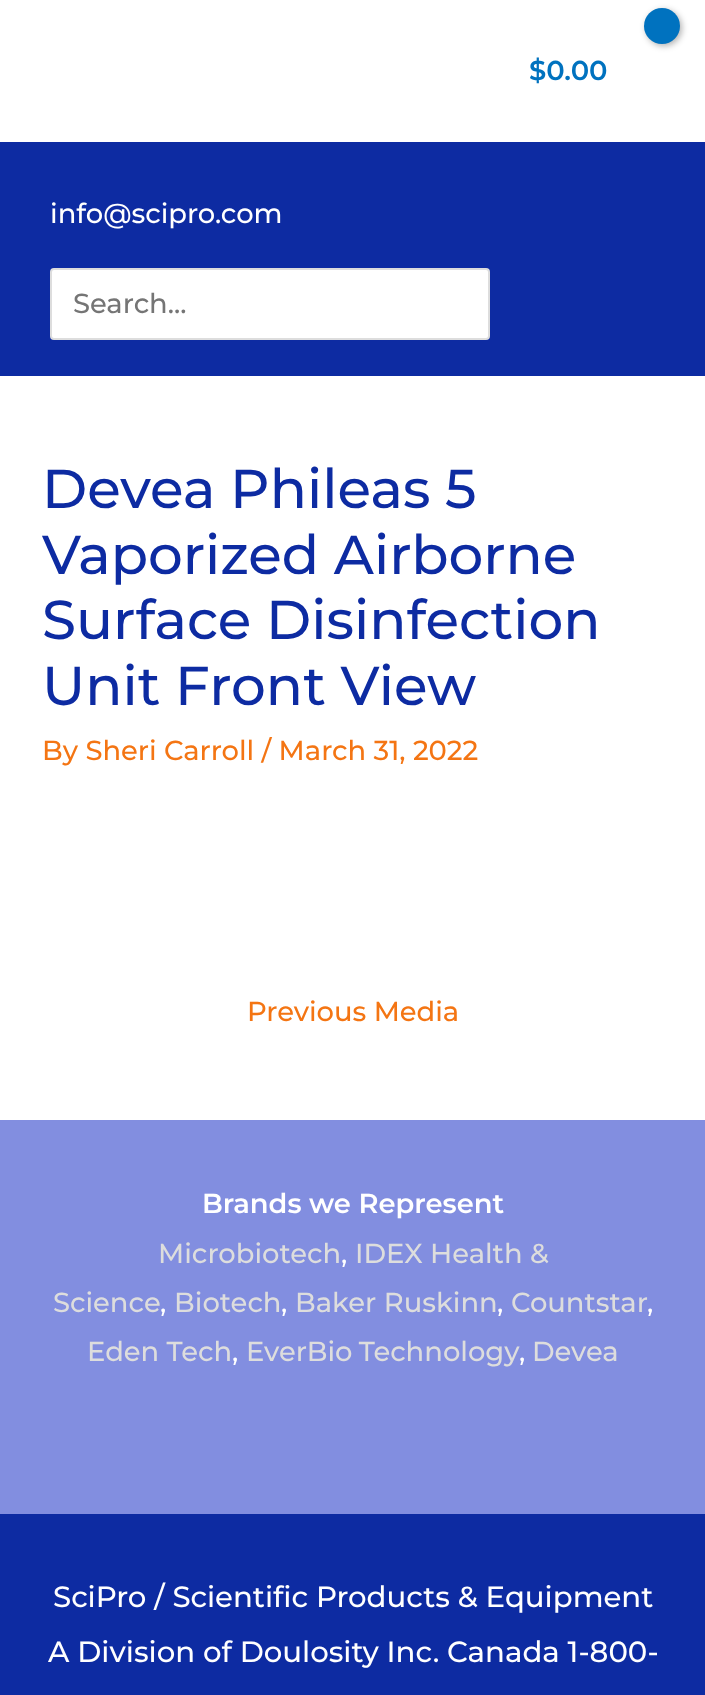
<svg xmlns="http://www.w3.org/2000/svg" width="705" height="1695">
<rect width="100%" height="100%" fill="#fff"/>
<rect x="646" y="10" width="36" height="36" rx="18" fill="#0000004d" filter="blur(3px)"/>
<circle cx="662" cy="26" r="18" fill="#0072bf"/>
<text x="529" y="80" style="font-family:Montserrat;font-size:27.4px;font-weight:600;fill:#0072bf">$0.00</text>
<rect y="142" width="705" height="234" fill="#0d2ba2"/>
<text x="50" y="223" style="font-family:Montserrat;font-size:27.4px;font-weight:500;fill:#fff">info@scipro.com</text>
<rect x="51" y="269" width="438" height="70" rx="3" fill="#fff" stroke="#ddd" stroke-width="2"/>
<text x="73" y="313" style="font-family:Montserrat;font-size:27.4px;font-weight:500;fill:#757575">Search...</text>
<text x="42" y="508" style="font-family:Montserrat;font-size:54.75px;font-weight:500;fill:#0d2ba2">Devea Phileas 5</text>
<text x="42" y="574" style="font-family:Montserrat;font-size:54.75px;font-weight:500;fill:#0d2ba2">Vaporized Airborne</text>
<text x="42" y="639" style="font-family:Montserrat;font-size:54.75px;font-weight:500;fill:#0d2ba2">Surface Disinfection</text>
<text x="42" y="705" style="font-family:Montserrat;font-size:54.75px;font-weight:500;fill:#0d2ba2">Unit Front View</text>
<text x="42" y="760" style="font-family:Montserrat;font-size:27.4px;font-weight:500;fill:#f47513">By Sheri Carroll / March 31, 2022</text>
<text x="247" y="1021" style="font-family:Montserrat;font-size:27.4px;font-weight:500;fill:#f47513">Previous Media</text>
<rect y="1120" width="705" height="394" fill="#828ee0"/>
<text x="202" y="1213" style="font-family:Montserrat;font-size:27.4px;font-weight:600;fill:#fff">Brands we Represent</text>
<text x="158" y="1263" style="font-family:Montserrat;font-size:27.4px;font-weight:500;fill:#ddd">Microbiotech</text>
<text x="341" y="1263" style="font-family:Montserrat;font-size:27.4px;font-weight:500;fill:#fff">,</text>
<text x="355" y="1263" style="font-family:Montserrat;font-size:27.4px;font-weight:500;fill:#ddd">IDEX Health &amp;</text>
<text x="53" y="1312" style="font-family:Montserrat;font-size:27.4px;font-weight:500;fill:#ddd">Science</text>
<text x="160" y="1312" style="font-family:Montserrat;font-size:27.4px;font-weight:500;fill:#fff">,</text>
<text x="174" y="1312" style="font-family:Montserrat;font-size:27.4px;font-weight:500;fill:#ddd">Biotech</text>
<text x="281" y="1312" style="font-family:Montserrat;font-size:27.4px;font-weight:500;fill:#fff">,</text>
<text x="295" y="1312" style="font-family:Montserrat;font-size:27.4px;font-weight:500;fill:#ddd">Baker Ruskinn</text>
<text x="497" y="1312" style="font-family:Montserrat;font-size:27.4px;font-weight:500;fill:#fff">,</text>
<text x="511" y="1312" style="font-family:Montserrat;font-size:27.4px;font-weight:500;fill:#ddd">Countstar</text>
<text x="647" y="1312" style="font-family:Montserrat;font-size:27.4px;font-weight:500;fill:#fff">,</text>
<text x="87" y="1361" style="font-family:Montserrat;font-size:27.4px;font-weight:500;fill:#ddd">Eden Tech</text>
<text x="232" y="1361" style="font-family:Montserrat;font-size:27.4px;font-weight:500;fill:#fff">,</text>
<text x="246" y="1361" word-spacing="-1" style="font-family:Montserrat;font-size:27.4px;font-weight:500;fill:#ddd">EverBio Technology</text>
<text x="519" y="1361" style="font-family:Montserrat;font-size:27.4px;font-weight:500;fill:#fff">,</text>
<text x="532" y="1361" style="font-family:Montserrat;font-size:27.4px;font-weight:500;fill:#ddd">Devea</text>
<rect y="1514" width="705" height="181" fill="#0d2ba2"/>
<text x="53" y="1607" style="font-family:Montserrat;font-size:29.2px;font-weight:500;fill:#fff">SciPro / Scientific Products &amp; Equipment</text>
<text x="48" y="1662" style="font-family:Montserrat;font-size:29.2px;font-weight:500;fill:#fff">A Division of Doulosity Inc.</text>
<text x="447" y="1662" style="font-family:Montserrat;font-size:29.2px;font-weight:500;fill:#fff">Canada 1-800-</text>
</svg>
